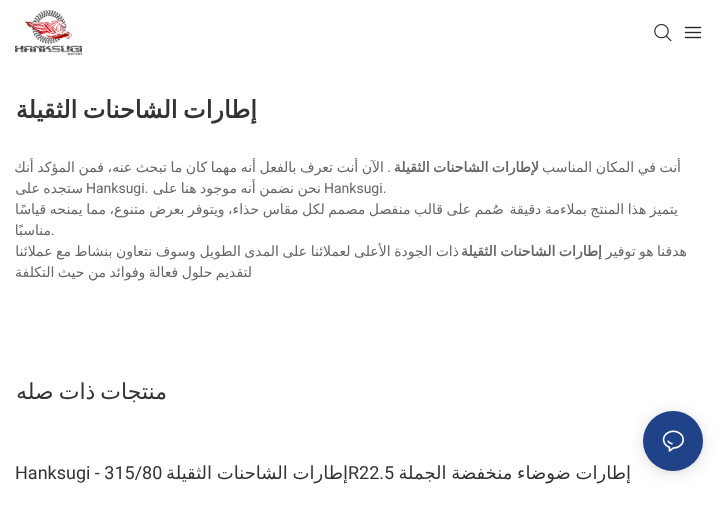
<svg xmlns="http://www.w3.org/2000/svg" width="718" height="523">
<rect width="100%" height="100%" fill="#fff"/>
<image x="684" y="26" width="18" height="13" href="media/1.png"/>
<image x="654" y="24" width="18" height="18" href="media/2.png"/>
<image x="15" y="10" width="67" height="45" href="media/3.png"/>
<text x="257" y="118" word-spacing="-2" style="font-family:DejaVu Sans;font-size:24px;font-weight:bold;direction:rtl;fill:#333">إطارات الشاحنات الثقيلة</text>
<text x="681" y="172" word-spacing="-1" style="font-family:DejaVu Sans;font-size:14px;direction:rtl;fill:#666">أنت في المكان المناسب</text>
<text x="539" y="172" word-spacing="-1" style="font-family:DejaVu Sans;font-size:14px;font-weight:bold;direction:rtl;fill:#666">لإطارات الشاحنات الثقيلة</text>
<text x="384" y="172" word-spacing="-0.8" style="font-family:DejaVu Sans;font-size:14px;direction:rtl;fill:#666">الآن أنت تعرف بالفعل أنه مهما كان ما تبحث عنه، فمن المؤكد أنك</text>
<text x="391" y="172" style="font-family:Roboto;font-size:14px;direction:rtl;fill:#666">.</text>
<text x="324" y="193" style="font-family:Roboto;font-size:14px;fill:#666">Hanksugi.</text>
<text x="321" y="193" word-spacing="-1" style="font-family:DejaVu Sans;font-size:14px;direction:rtl;fill:#666">نحن نضمن أنه موجود هنا على</text>
<text x="86" y="193" style="font-family:Roboto;font-size:14px;fill:#666">Hanksugi.</text>
<text x="83" y="193" word-spacing="-1" style="font-family:DejaVu Sans;font-size:14px;direction:rtl;fill:#666">ستجده على</text>
<text x="504" y="214" word-spacing="-0.9" style="font-family:DejaVu Sans;font-size:14px;direction:rtl;fill:#666">صُمم على قالب منفصل مصمم لكل مقاس حذاء، ويتوفر بعرض متنوع، مما يمنحه قياسًا</text>
<text x="678" y="214" word-spacing="-0.9" style="font-family:DejaVu Sans;font-size:14px;direction:rtl;fill:#666">يتميز هذا المنتج بملاءمة دقيقة</text>
<text x="51" y="235" style="font-family:Roboto;font-size:14px;fill:#666">.</text>
<text x="51" y="235" style="font-family:DejaVu Sans;font-size:14px;direction:rtl;fill:#666">مناسبًا</text>
<text x="687" y="256" word-spacing="-1" style="font-family:DejaVu Sans;font-size:14px;direction:rtl;fill:#666">هدفنا هو توفير</text>
<text x="602" y="256" word-spacing="-1" style="font-family:DejaVu Sans;font-size:14px;font-weight:bold;direction:rtl;fill:#666">إطارات الشاحنات الثقيلة</text>
<text x="459" y="256" word-spacing="-0.9" style="font-family:DejaVu Sans;font-size:14px;direction:rtl;fill:#666">ذات الجودة الأعلى لعملائنا على المدى الطويل وسوف نتعاون بنشاط مع عملائنا</text>
<text x="252" y="277" word-spacing="-1" style="font-family:DejaVu Sans;font-size:14px;direction:rtl;fill:#666">لتقديم حلول فعالة وفوائد من حيث التكلفة</text>
<text x="167" y="399" word-spacing="-2" style="font-family:DejaVu Sans;font-size:22px;direction:rtl;fill:#333">منتجات ذات صله</text>
<text x="631" y="479" word-spacing="-1" style="font-family:DejaVu Sans;font-size:18px;direction:rtl;fill:#333">إطارات ضوضاء منخفضة الجملة</text>
<text x="348" y="479" word-spacing="-1" style="font-family:DejaVu Sans;font-size:18px;direction:rtl;fill:#333">إطارات الشاحنات الثقيلة</text>
<text x="348" y="479" style="font-family:Roboto;font-size:18px;fill:#333">R22.5</text>
<text x="15" y="479" style="font-family:Roboto;font-size:18px;fill:#333">Hanksugi - 315/80</text>
<rect x="643" y="413" width="60" height="60" rx="30" fill="#0000001f" filter="blur(8px)"/>
<rect x="643" y="412" width="60" height="60" rx="30" fill="#0000000f" filter="blur(2px)"/>
<circle cx="673" cy="441" r="30" fill="#204289"/>
<image x="662" y="430" width="22" height="22" href="media/4.png"/>
</svg>
